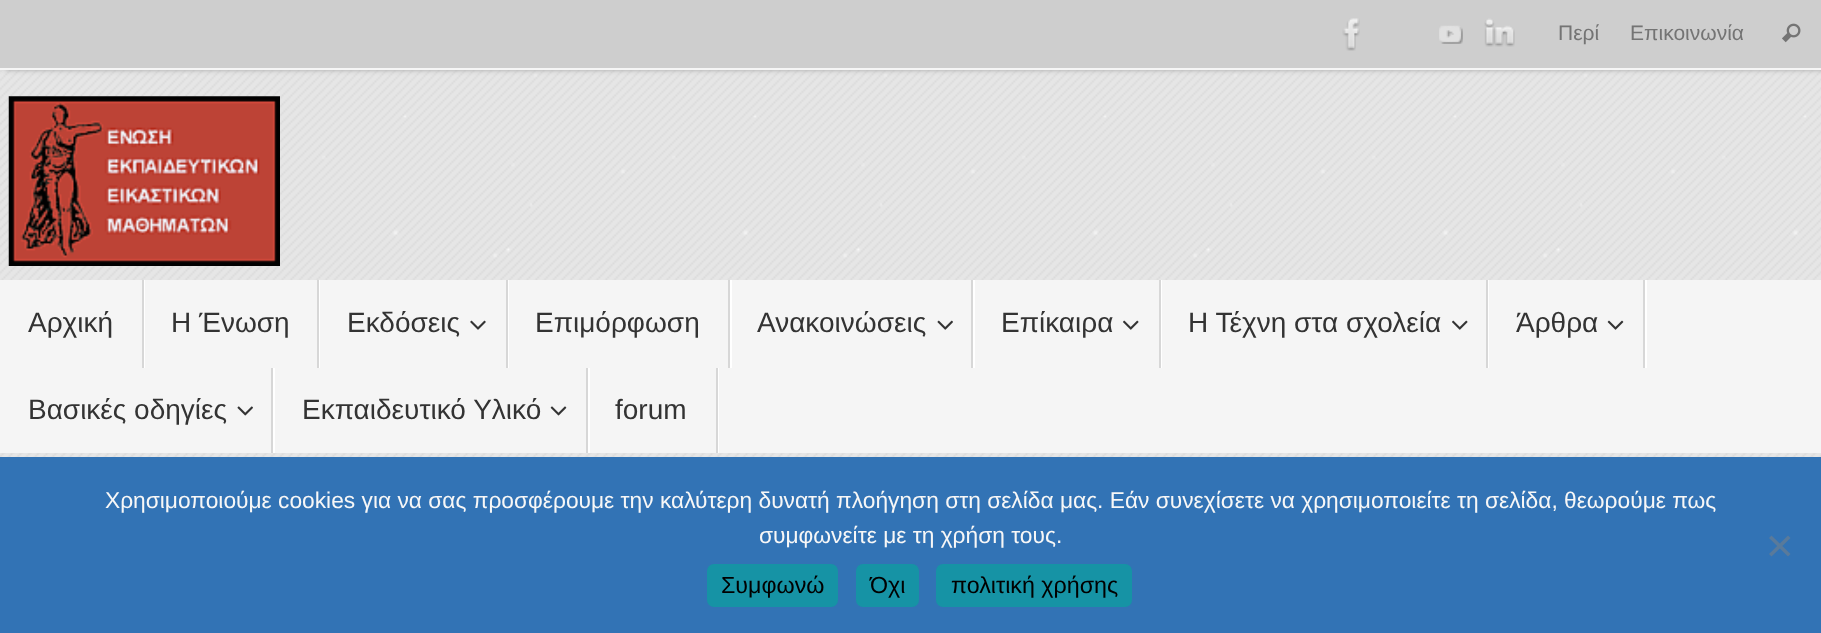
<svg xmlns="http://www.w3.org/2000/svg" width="1821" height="633">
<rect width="100%" height="100%" fill="#fff"/>
<image x="0" y="70" width="1821" height="387" href="media/1.png"/>
<rect x="5" width="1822" height="70" fill="#a6a6a6" filter="blur(2.5px)"/>
<rect width="1821" height="68" fill="#cecece"/>
<rect y="68" width="1821" height="2" fill="#f6f6f6"/>
<image x="1342" y="18" width="18" height="33" href="media/2.png"/>
<image x="1439" y="25" width="24" height="19" href="media/3.png"/>
<image x="1484" y="18" width="31" height="29" href="media/4.png"/>
<text x="1558" y="40" style="font-family:Liberation Sans;font-size:21px;fill:#747474">Περί</text>
<text x="1630" y="40" style="font-family:Liberation Sans;font-size:21px;fill:#747474">Επικοινωνία</text>
<image x="1782" y="23" width="19" height="20" href="media/5.png"/>
<image x="8" y="96" width="272" height="170" href="media/6.png"/>
<rect y="280" width="1821" height="173" fill="#f5f5f5"/>
<path d="M2 368h143v-88h-1v88z" fill="#fff"/>
<rect x="142" y="280" width="2" height="88" fill="#d7d7d7"/>
<text x="28" y="332" style="font-family:Liberation Sans;font-size:28px;fill:#333">Αρχική</text>
<path d="M145 368h175v-88h-2v88z" fill="#fff"/>
<rect x="317" y="280" width="2" height="88" fill="#d7d7d7"/>
<text x="171" y="332" style="font-family:Liberation Sans;font-size:28px;fill:#333">Η Ένωση</text>
<path d="M320 368h189v-88h-1v88z" fill="#fff"/>
<rect x="506" y="280" width="2" height="88" fill="#d7d7d7"/>
<text x="347" y="332" style="font-family:Liberation Sans;font-size:28px;fill:#333">Εκδόσεις</text>
<image x="470" y="320" width="16" height="10" href="media/7.png"/>
<path d="M509 368h223v-88h-2v88z" fill="#fff"/>
<rect x="728" y="280" width="2" height="88" fill="#d7d7d7"/>
<text x="535" y="332" style="font-family:Liberation Sans;font-size:28px;fill:#333">Επιμόρφωση</text>
<path d="M732 368h243v-88h-2v88z" fill="#fff"/>
<rect x="971" y="280" width="2" height="88" fill="#d7d7d7"/>
<text x="757" y="332" style="font-family:Liberation Sans;font-size:28px;fill:#333">Ανακοινώσεις</text>
<image x="937" y="320" width="16" height="10" href="media/8.png"/>
<path d="M975 368h187v-88h-2v88z" fill="#fff"/>
<rect x="1159" y="280" width="2" height="88" fill="#d7d7d7"/>
<text x="1001" y="332" style="font-family:Liberation Sans;font-size:28px;fill:#333">Επίκαιρα</text>
<image x="1123" y="320" width="16" height="10" href="media/9.png"/>
<path d="M1162 368h327v-88h-1v88z" fill="#fff"/>
<rect x="1486" y="280" width="2" height="88" fill="#d7d7d7"/>
<text x="1188" y="332" style="font-family:Liberation Sans;font-size:28px;fill:#333">Η Τέχνη στα σχολεία</text>
<image x="1452" y="320" width="16" height="10" href="media/9.png"/>
<path d="M1489 368h158v-88h-2v88z" fill="#fff"/>
<rect x="1643" y="280" width="2" height="88" fill="#d7d7d7"/>
<text x="1516" y="332" style="font-family:Liberation Sans;font-size:28px;fill:#333">Άρθρα</text>
<image x="1607" y="320" width="17" height="10" href="media/10.png"/>
<rect x="273" y="368" width="2" height="85" fill="#fff"/>
<rect x="271" y="368" width="2" height="85" fill="#d7d7d7"/>
<text x="28" y="419" style="font-family:Liberation Sans;font-size:28px;fill:#333">Βασικές οδηγίες</text>
<image x="237" y="406" width="16" height="10" href="media/11.png"/>
<rect x="588" y="368" width="2" height="85" fill="#fff"/>
<rect x="586" y="368" width="2" height="85" fill="#d7d7d7"/>
<text x="302" y="419" style="font-family:Liberation Sans;font-size:28px;fill:#333">Εκπαιδευτικό Υλικό</text>
<image x="550" y="406" width="17" height="10" href="media/12.png"/>
<rect x="718" y="368" width="1" height="85" fill="#fff"/>
<rect x="716" y="368" width="2" height="85" fill="#d7d7d7"/>
<text x="615" y="419" style="font-family:Liberation Sans;font-size:28px;fill:#333">forum</text>
<rect y="457" width="1821" height="176" fill="#3273b5"/>
<text x="105" y="508" style="font-family:Liberation Sans;font-size:22.75px;fill:#f7f7f7">Χρησιμοποιούμε cookies για να σας προσφέρουμε την καλύτερη δυνατή πλοήγηση στη σελίδα μας. Εάν συνεχίσετε να χρησιμοποιείτε τη σελίδα, θεωρούμε πως</text>
<text x="759" y="543" style="font-family:Liberation Sans;font-size:22.75px;fill:#f7f7f7">συμφωνείτε με τη χρήση τους.</text>
<path d="M1788 535.5l2.5 2.5l-19 18.5l-2.5-2.5z" fill="#597a9b"/>
<path d="M1769 538l2.5-2.5l19 18.5l-2.5 2.5z" fill="#597a9b"/>
<rect x="707" y="564" width="131" height="43" rx="7" fill="#1693a5"/>
<text x="721" y="593" style="font-family:Liberation Sans;font-size:23.25px;fill:#000">Συμφωνώ</text>
<rect x="856" y="564" width="63" height="43" rx="7" fill="#1693a5"/>
<text x="870" y="593" style="font-family:Liberation Sans;font-size:23.25px;fill:#000">Όχι</text>
<rect x="936" y="564" width="196" height="43" rx="7" fill="#1693a5"/>
<text x="951" y="593" style="font-family:Liberation Sans;font-size:23.25px;fill:#000">πολιτική χρήσης</text>
</svg>
